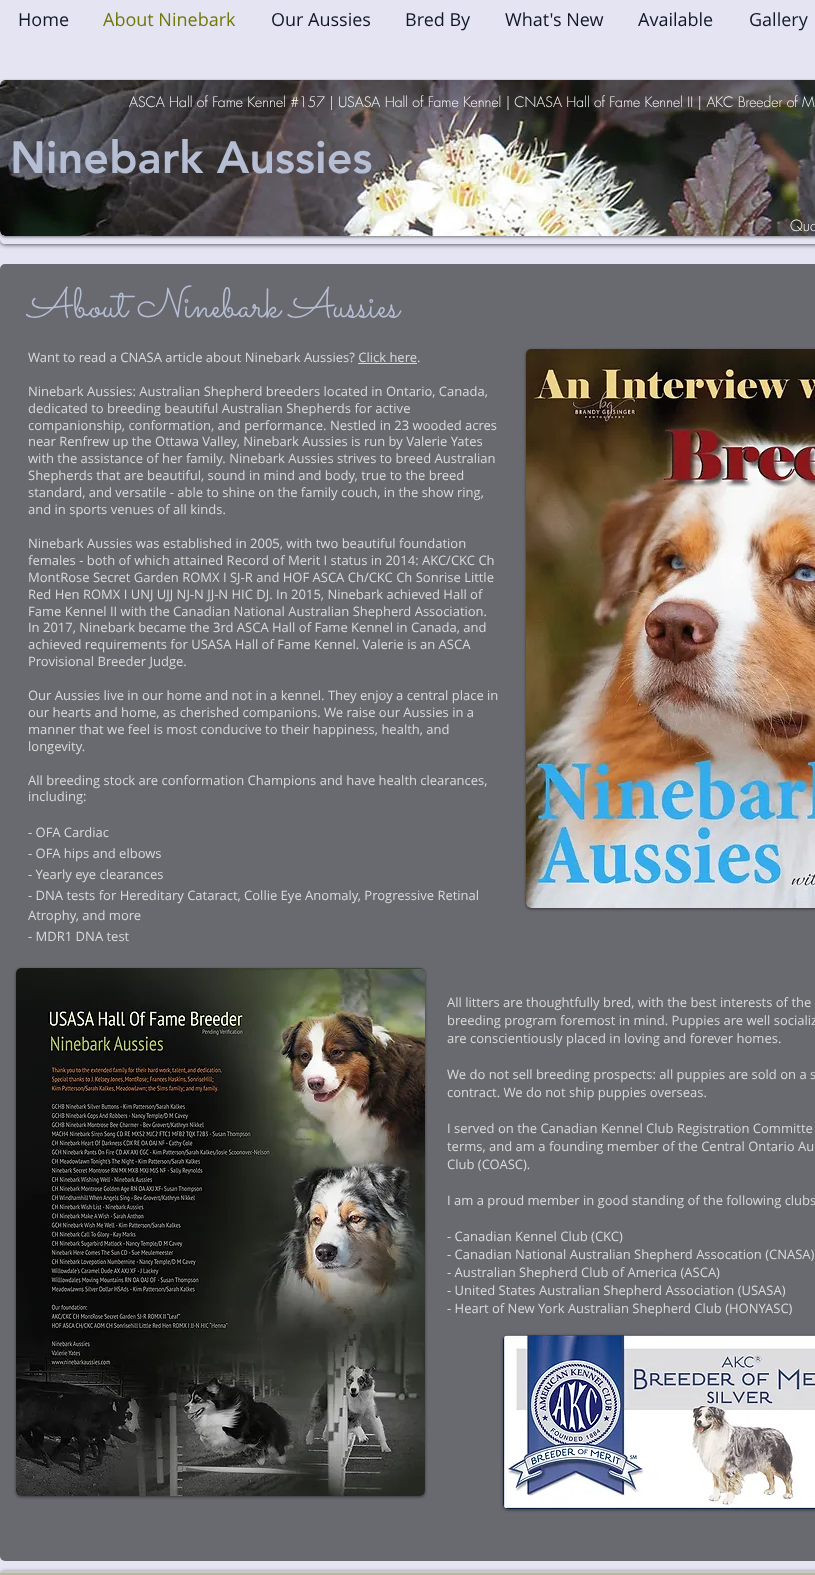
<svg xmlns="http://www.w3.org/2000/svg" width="815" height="1575">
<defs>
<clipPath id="clip1"><path d="M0 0h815v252h-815zm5-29h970c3 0 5 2 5 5v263c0 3-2 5-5 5h-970c-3 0-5-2-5-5v-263c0-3 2-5 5-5z" clip-rule="evenodd"/></clipPath>
<clipPath id="clip2"><path d="M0 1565h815v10h-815zm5 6h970c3 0 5 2 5 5v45c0 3-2 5-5 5h-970c-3 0-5-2-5-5v-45c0-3 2-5 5-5z" clip-rule="evenodd"/></clipPath>
</defs>
<rect width="100%" height="100%" fill="#e4e4f3"/>
<g clip-path="url(#clip1)">
<rect y="-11" width="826" height="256" rx="5" fill="#00000099" filter="blur(2px)"/>
</g>
<text x="18" y="26" style="font-family:Open Sans;font-size:18px;fill:#111828">Home</text>
<text x="103" y="26" style="font-family:Open Sans;font-size:18px;fill:#717806">About Ninebark</text>
<text x="271" y="26" style="font-family:Open Sans;font-size:18px;fill:#111828">Our Aussies</text>
<text x="405" y="26" style="font-family:Open Sans;font-size:18px;fill:#111828">Bred By</text>
<text x="505" y="26" style="font-family:Open Sans;font-size:18px;fill:#111828">What's New</text>
<text x="638" y="26" style="font-family:Open Sans;font-size:18px;fill:#111828">Available</text>
<text x="749" y="26" style="font-family:Open Sans;font-size:18px;fill:#111828">Gallery</text>
<rect y="81" width="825" height="156" rx="5" fill="#00000080" filter="blur(1.5px)"/>
<rect y="80" width="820" height="156" rx="5" fill="#fff"/>
<image x="0" y="80" width="815" height="156" href="media/1.png"/>
<text x="129" y="107" style="font-family:futura;font-size:14px;font-weight:300;fill:#fff">ASCA Hall of Fame Kennel #157 | USASA Hall of Fame Kennel | CNASA Hall of Fame Kennel II | AKC Breeder of M</text>
<text x="10" y="173" style="font-family:'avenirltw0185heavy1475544';font-size:45px;font-weight:900;fill:#b5bed3">Ninebark Aussies</text>
<text x="790" y="231" style="font-family:futura;font-size:15px;font-weight:300;fill:#fff">Qua</text>
<rect y="264" width="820" height="1297" rx="5" fill="#696970"/>
<text x="28" y="317" style="font-family:Sacramento;font-size:42px;fill:#b5bed3">About Ninebark Aussies</text>
<text x="28" y="362" style="font-family:Open Sans;font-size:13px;fill:#dbd9d9">Want to read a CNASA article about Ninebark Aussies? Click here.</text>
<rect x="358" y="363" width="59" height="1" fill="#dbd9d9"/>
<text x="28" y="396" style="font-family:Open Sans;font-size:13px;fill:#dbd9d9">Ninebark Aussies: Australian Shepherd breeders located in Ontario, Canada,</text>
<text x="28" y="413" style="font-family:Open Sans;font-size:13px;fill:#dbd9d9">dedicated to breeding beautiful Australian Shepherds for active</text>
<text x="28" y="430" style="font-family:Open Sans;font-size:13px;fill:#dbd9d9">companionship, conformation, and performance. Nestled in 23 wooded acres</text>
<text x="28" y="446" style="font-family:Open Sans;font-size:13px;fill:#dbd9d9">near Renfrew up the Ottawa Valley, Ninebark Aussies is run by Valerie Yates</text>
<text x="28" y="463" style="font-family:Open Sans;font-size:13px;fill:#dbd9d9">with the assistance of her family. Ninebark Aussies strives to breed Australian</text>
<text x="28" y="480" style="font-family:Open Sans;font-size:13px;fill:#dbd9d9">Shepherds that are beautiful, sound in mind and body, true to the breed</text>
<text x="28" y="497" style="font-family:Open Sans;font-size:13px;fill:#dbd9d9">standard, and versatile - able to shine on the family couch, in the show ring,</text>
<text x="28" y="514" style="font-family:Open Sans;font-size:13px;fill:#dbd9d9">and in sports venues of all kinds.</text>
<text x="28" y="548" style="font-family:Open Sans;font-size:13px;fill:#dbd9d9">Ninebark Aussies was established in 2005, with two beautiful foundation</text>
<text x="28" y="565" style="font-family:Open Sans;font-size:13px;fill:#dbd9d9">females - both of which attained Record of Merit I status in 2014: AKC/CKC Ch</text>
<text x="28" y="582" style="font-family:Open Sans;font-size:13px;fill:#dbd9d9">MontRose Secret Garden ROMX I SJ-R and HOF ASCA Ch/CKC Ch Sonrise Little</text>
<text x="28" y="599" style="font-family:Open Sans;font-size:13px;fill:#dbd9d9">Red Hen ROMX I UNJ UJJ NJ-N JJ-N HIC DJ. In 2015, Ninebark achieved Hall of</text>
<text x="28" y="616" style="font-family:Open Sans;font-size:13px;fill:#dbd9d9">Fame Kennel II with the Canadian National Australian Shepherd Association.</text>
<text x="28" y="632" style="font-family:Open Sans;font-size:13px;fill:#dbd9d9">In 2017, Ninebark became the 3rd ASCA Hall of Fame Kennel in Canada, and</text>
<text x="28" y="649" style="font-family:Open Sans;font-size:13px;fill:#dbd9d9">achieved requirements for USASA Hall of Fame Kennel. Valerie is an ASCA</text>
<text x="28" y="666" style="font-family:Open Sans;font-size:13px;fill:#dbd9d9">Provisional Breeder Judge.</text>
<text x="28" y="700" style="font-family:Open Sans;font-size:13px;fill:#dbd9d9">Our Aussies live in our home and not in a kennel. They enjoy a central place in</text>
<text x="28" y="717" style="font-family:Open Sans;font-size:13px;fill:#dbd9d9">our hearts and home, as cherished companions. We raise our Aussies in a</text>
<text x="28" y="734" style="font-family:Open Sans;font-size:13px;fill:#dbd9d9">manner that we feel is most conducive to their happiness, health, and</text>
<text x="28" y="751" style="font-family:Open Sans;font-size:13px;fill:#dbd9d9">longevity.</text>
<text x="28" y="785" style="font-family:Open Sans;font-size:13px;fill:#dbd9d9">All breeding stock are conformation Champions and have health clearances,</text>
<text x="28" y="801" style="font-family:Open Sans;font-size:13px;fill:#dbd9d9">including:</text>
<text x="28" y="837" style="font-family:Open Sans;font-size:13px;fill:#dbd9d9">- OFA Cardiac</text>
<text x="28" y="858" style="font-family:Open Sans;font-size:13px;fill:#dbd9d9">- OFA hips and elbows</text>
<text x="28" y="879" style="font-family:Open Sans;font-size:13px;fill:#dbd9d9">- Yearly eye clearances</text>
<text x="28" y="900" style="font-family:Open Sans;font-size:13px;fill:#dbd9d9">- DNA tests for Hereditary Cataract, Collie Eye Anomaly, Progressive Retinal</text>
<text x="28" y="920" style="font-family:Open Sans;font-size:13px;fill:#dbd9d9">Atrophy, and more</text>
<text x="28" y="941" style="font-family:Open Sans;font-size:13px;fill:#dbd9d9">- MDR1 DNA test</text>
<rect x="526" y="350" width="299" height="559" rx="5" fill="#00000080" filter="blur(1.5px)"/>
<rect x="526" y="349" width="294" height="559" rx="5" fill="#645844"/>
<image x="526" y="349" width="289" height="559" href="media/2.png"/>
<rect x="16" y="969" width="409" height="528" rx="5" fill="#00000080" filter="blur(1.5px)"/>
<rect x="16" y="968" width="409" height="528" rx="5" fill="#645844"/>
<image x="16" y="968" width="409" height="528" href="media/3.png"/>
<text x="447" y="1007" style="font-family:Open Sans;font-size:13px;fill:#dbd9d9">All litters are thoughtfully bred, with the best interests of the</text>
<text x="447" y="1025" style="font-family:Open Sans;font-size:13px;fill:#dbd9d9">breeding program foremost in mind. Puppies are well socializ</text>
<text x="447" y="1043" style="font-family:Open Sans;font-size:13px;fill:#dbd9d9">are conscientiously placed in loving and forever homes.</text>
<text x="447" y="1079" style="font-family:Open Sans;font-size:13px;fill:#dbd9d9">We do not sell breeding prospects: all puppies are sold on a s</text>
<text x="447" y="1097" style="font-family:Open Sans;font-size:13px;fill:#dbd9d9">contract. We do not ship puppies overseas.</text>
<text x="447" y="1133" style="font-family:Open Sans;font-size:13px;fill:#dbd9d9">I served on the Canadian Kennel Club Registration Committe</text>
<text x="447" y="1151" style="font-family:Open Sans;font-size:13px;fill:#dbd9d9">terms, and am a founding member of the Central Ontario Au</text>
<text x="447" y="1169" style="font-family:Open Sans;font-size:13px;fill:#dbd9d9">Club (COASC).</text>
<text x="447" y="1205" style="font-family:Open Sans;font-size:13px;fill:#dbd9d9">I am a proud member in good standing of the following clubs</text>
<text x="447" y="1241" style="font-family:Open Sans;font-size:13px;fill:#dbd9d9">- Canadian Kennel Club (CKC)</text>
<text x="447" y="1259" style="font-family:Open Sans;font-size:13px;fill:#dbd9d9">- Canadian National Australian Shepherd Assocation (CNASA)</text>
<text x="447" y="1277" style="font-family:Open Sans;font-size:13px;fill:#dbd9d9">- Australian Shepherd Club of America (ASCA)</text>
<text x="447" y="1295" style="font-family:Open Sans;font-size:13px;fill:#dbd9d9">- United States Australian Shepherd Association (USASA)</text>
<text x="447" y="1313" style="font-family:Open Sans;font-size:13px;fill:#dbd9d9">- Heart of New York Australian Shepherd Club (HONYASC)</text>
<rect x="503" y="1336" width="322" height="174" rx="5" fill="#00000080" filter="blur(1.5px)"/>
<rect x="503" y="1335" width="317" height="174" rx="5" fill="#645844"/>
<image x="503" y="1335" width="312" height="174" href="media/4.png"/>
<g clip-path="url(#clip2)">
<rect y="1572" width="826" height="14" rx="5" fill="#00000099" filter="blur(2px)"/>
</g>
<rect y="1571" width="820" height="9" rx="5" fill="#7178063d"/>
<image x="0" y="1573" width="815" height="2" href="media/5.png"/>
</svg>
